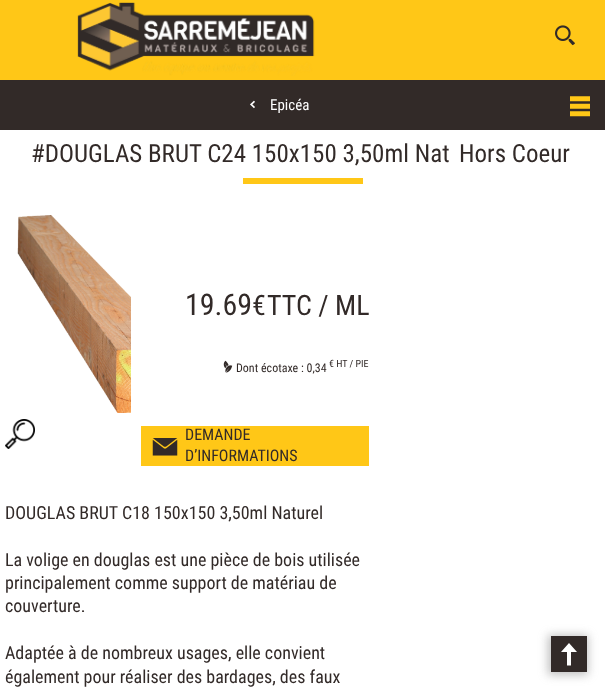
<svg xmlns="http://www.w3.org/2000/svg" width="605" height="692">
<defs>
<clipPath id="clip1"><path d="M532 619h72v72h-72zm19 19h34v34h-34z" clip-rule="evenodd"/></clipPath>
</defs>
<rect width="100%" height="100%" fill="#fff"/>
<rect width="605" height="80" fill="#ffc717"/>
<image x="77" y="2" width="238" height="74" href="media/1.png"/>
<image x="555" y="25" width="20" height="21" href="media/2.png"/>
<rect y="80" width="605" height="50" fill="#322a28"/>
<image x="250" y="100" width="5" height="9" href="media/3.png"/>
<text x="270" y="110" style="font-family:Roboto Condensed;font-size:15px;fill:#fff">Epicéa</text>
<image x="570" y="96" width="20" height="21" href="media/4.png"/>
<text x="31" y="162" style="font-family:Roboto Condensed;font-size:25px;fill:#322a28">#DOUGLAS BRUT C24 150x150 3,50ml Nat</text>
<text x="459" y="162" style="font-family:Roboto Condensed;font-size:25px;fill:#322a28">Hors Coeur</text>
<rect x="243" y="178" width="120" height="6" fill="#ffc717"/>
<image x="17" y="215" width="114" height="198" href="media/5.png"/>
<image x="5" y="419" width="30" height="30" href="media/6.png"/>
<text x="185" y="315" style="font-family:Roboto Condensed;font-size:30px;fill:#322a28">19.69</text>
<text x="252" y="315" style="font-family:Roboto Condensed;font-size:28px;fill:#322a28">€</text>
<text x="267" y="315" style="font-family:Roboto Condensed;font-size:28px;fill:#322a28">TTC / ML</text>
<image x="223" y="360" width="10" height="13" href="media/7.png"/>
<text x="236" y="372" style="font-family:Roboto Condensed;font-size:12px;fill:#322a28">Dont écotaxe : 0,34</text>
<text x="329" y="367" style="font-family:Roboto Condensed;font-size:10px;fill:#322a28">€ HT / PIE</text>
<rect x="141" y="426" width="228" height="40" fill="#ffc717"/>
<text x="185" y="440" style="font-family:Roboto Condensed;font-size:16px;fill:#322a28">DEMANDE</text>
<image x="152" y="438" width="26" height="18" href="media/8.png"/>
<text x="185" y="461" style="font-family:Roboto Condensed;font-size:16px;fill:#322a28">D’INFORMATIONS</text>
<text x="5" y="519" style="font-family:Roboto Condensed;font-size:18px;fill:#322a28">DOUGLAS BRUT C18 150x150 3,50ml Naturel</text>
<text x="5" y="566" style="font-family:Roboto Condensed;font-size:18px;fill:#322a28">La volige en douglas est une pièce de bois utilisée</text>
<text x="5" y="589" style="font-family:Roboto Condensed;font-size:18px;fill:#322a28">principalement comme support de matériau de</text>
<text x="5" y="612" style="font-family:Roboto Condensed;font-size:18px;fill:#322a28">couverture.</text>
<text x="5" y="659" style="font-family:Roboto Condensed;font-size:18px;fill:#322a28">Adaptée à de nombreux usages, elle convient</text>
<text x="5" y="683" style="font-family:Roboto Condensed;font-size:18px;fill:#322a28">également pour réaliser des bardages, des faux</text>
<g clip-path="url(#clip1)">
<rect x="548" y="635" width="40" height="40" fill="#7f7f7f80" filter="blur(5px)"/>
</g>
<path d="M567 652v13.5h4v-13.5h6l-8-9l-8 9zm-16-16h36v36h-36z" fill="#322a28"/>
</svg>
